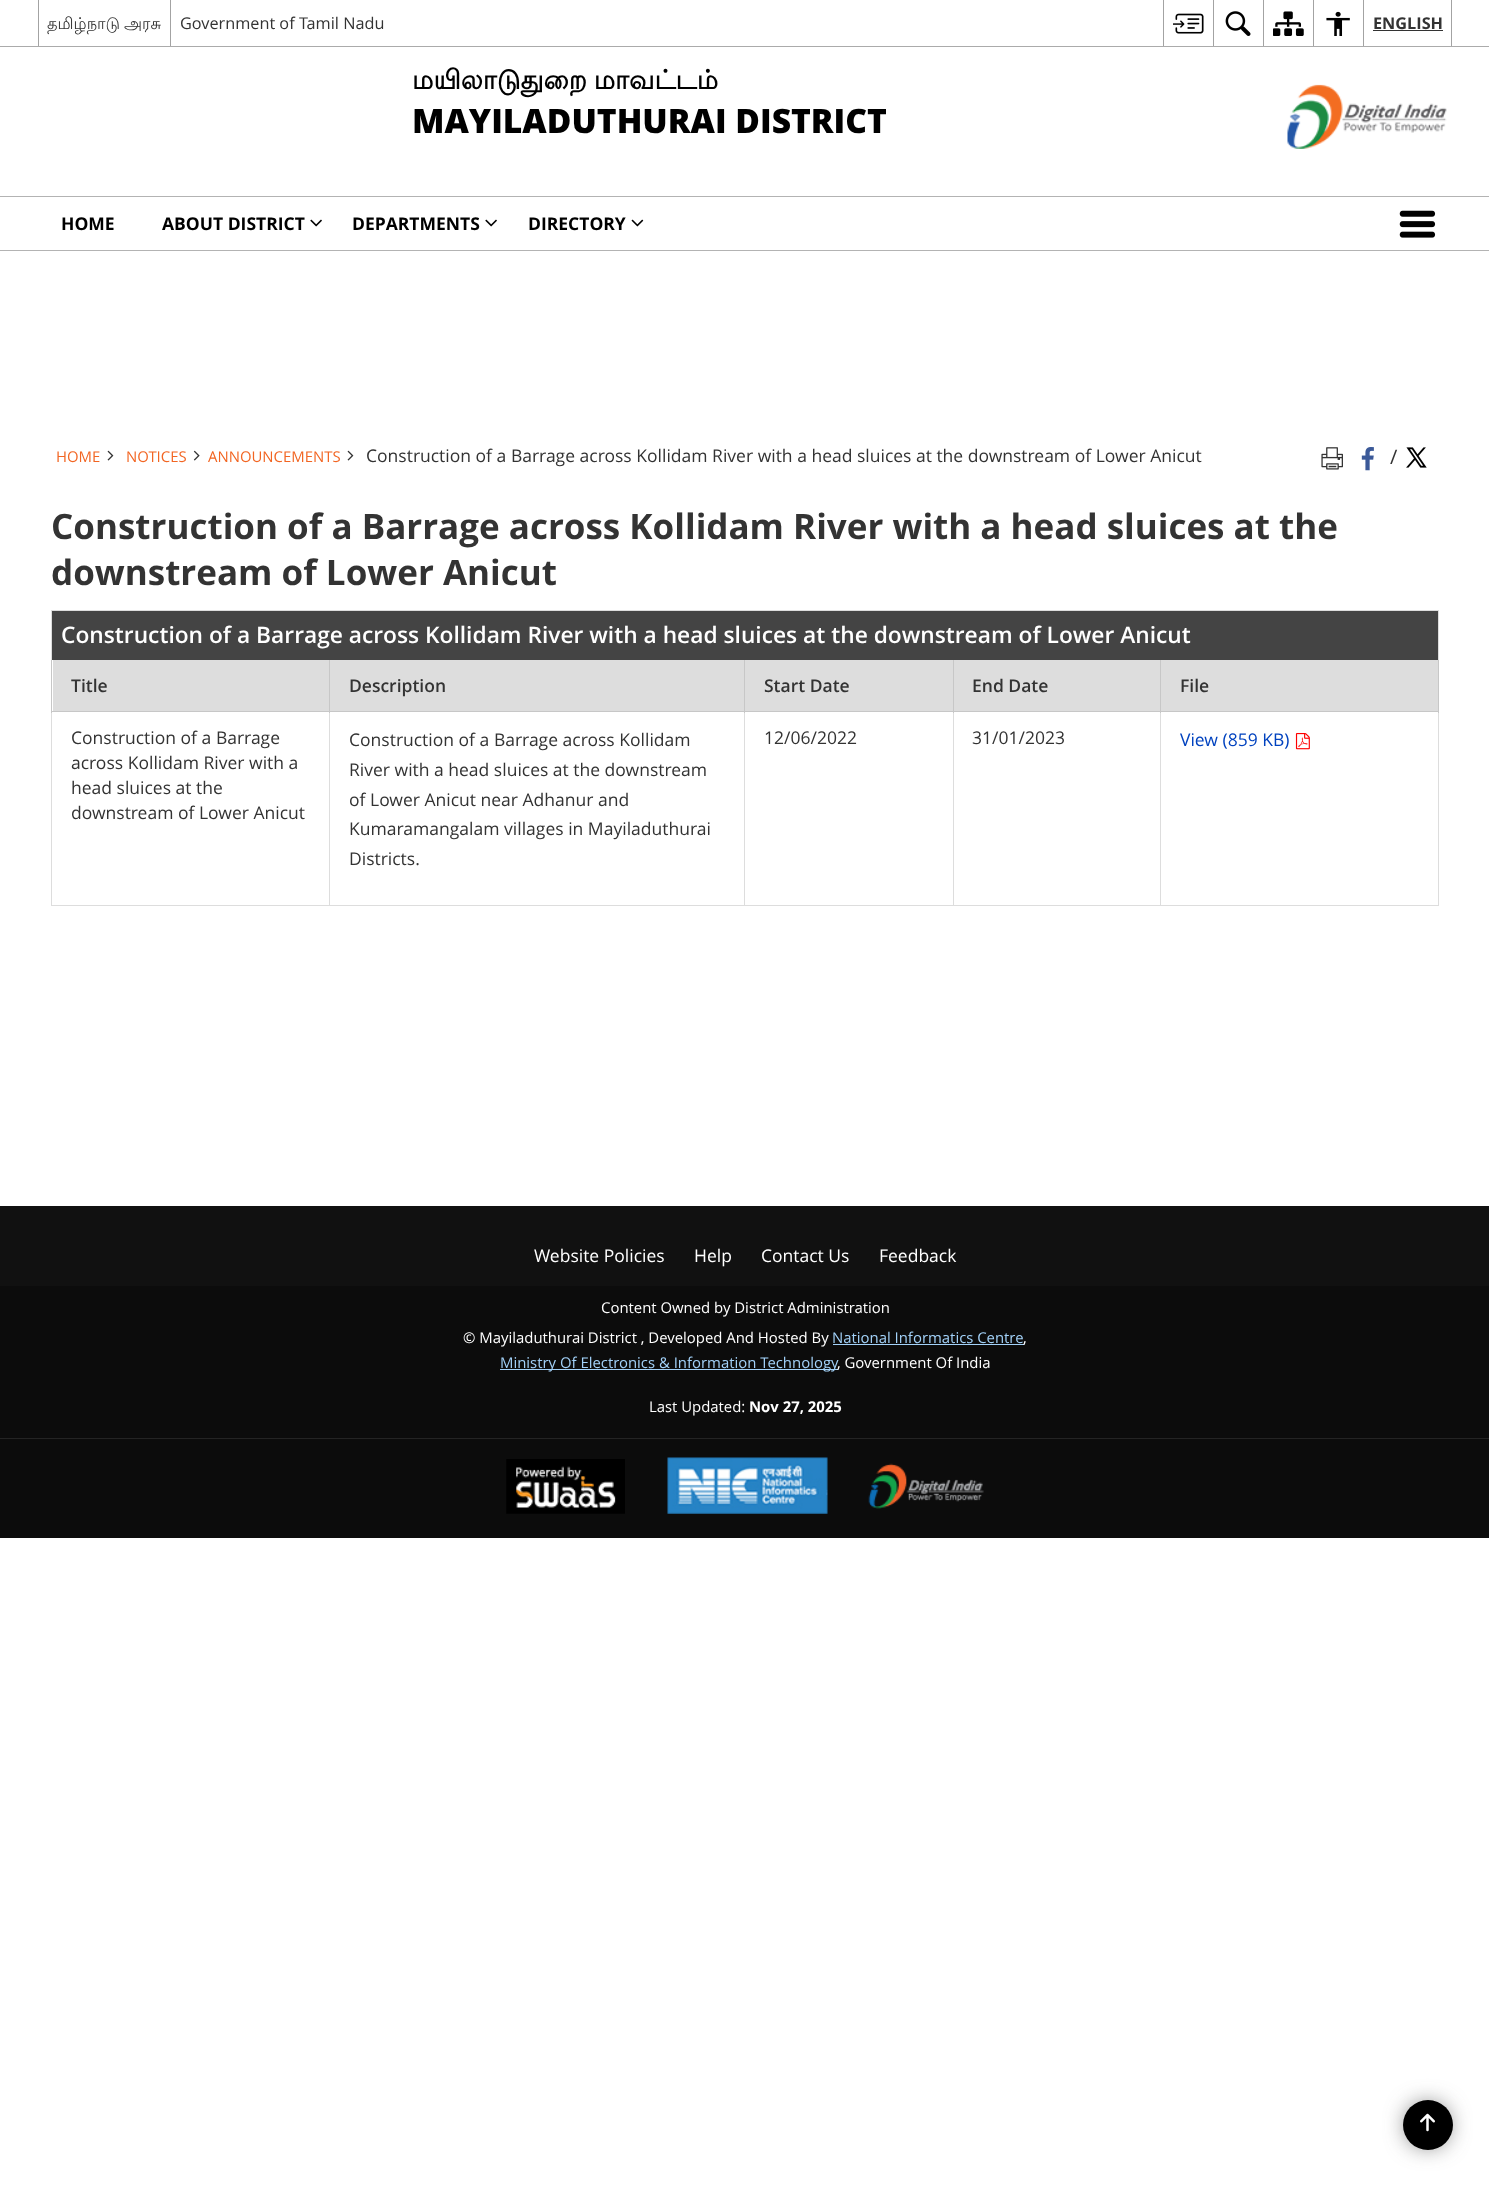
<svg xmlns="http://www.w3.org/2000/svg" width="1489" height="2187">
<rect width="100%" height="100%" fill="#fff"/>
<rect y="46" width="1489" height="1" fill="#ababab"/>
<rect x="38" width="1" height="46" fill="#a3a3a3"/>
<text x="47" y="29" word-spacing="-1" style="font-family:Lohit Tamil;font-size:16.25px;fill:#333">தமிழ்நாடு அரசு</text>
<rect x="170" width="1" height="46" fill="#a3a3a3"/>
<text x="180" y="29" style="font-family:Open Sans;font-size:16.25px;fill:#333">Government of Tamil Nadu</text>
<rect x="1163" width="1" height="46" fill="#a3a3a3"/>
<image x="1173" y="13" width="31" height="21" href="media/1.png"/>
<rect x="1213" width="1" height="46" fill="#a3a3a3"/>
<image x="1225" y="11" width="26" height="25" href="media/2.png"/>
<rect x="1263" width="1" height="46" fill="#a3a3a3"/>
<image x="1273" y="11" width="31" height="25" href="media/3.png"/>
<rect x="1313" width="1" height="46" fill="#a3a3a3"/>
<image x="1326" y="11" width="24" height="25" href="media/4.png"/>
<rect x="1451" width="1" height="46" fill="#a3a3a3"/>
<rect x="1363" width="1" height="46" fill="#a3a3a3"/>
<text x="1373" y="29" style="font-family:Open Sans;font-size:16.25px;font-weight:bold;fill:#333">ENGLISH</text>
<rect x="1373" y="30" width="70" height="1" fill="#333"/>
<text x="412" y="89" word-spacing="-1" style="font-family:Lohit Tamil;font-size:26.6px;font-weight:bold;fill:#000">மயிலாடுதுறை மாவட்டம்</text>
<text x="412" y="133" style="font-family:Open Sans;font-size:33.6px;font-weight:800;fill:#000">MAYILADUTHURAI DISTRICT</text>
<image x="1287" y="84" width="160" height="65" href="media/5.png"/>
<rect y="196" width="1489" height="1" fill="#b3b3b3"/>
<rect y="250" width="1489" height="1" fill="#b3b3b3"/>
<text x="61" y="230" style="font-family:Open Sans;font-size:17.5px;font-weight:bold;fill:#000">HOME</text>
<text x="162" y="230" style="font-family:Open Sans;font-size:17.5px;font-weight:bold;fill:#000">ABOUT DISTRICT</text>
<image x="310" y="219" width="12" height="8" href="media/6.png"/>
<text x="352" y="230" style="font-family:Open Sans;font-size:17.5px;font-weight:bold;fill:#000">DEPARTMENTS</text>
<image x="485" y="219" width="12" height="8" href="media/6.png"/>
<text x="528" y="230" style="font-family:Open Sans;font-size:17.5px;font-weight:bold;fill:#000">DIRECTORY</text>
<image x="631" y="219" width="13" height="8" href="media/7.png"/>
<image x="1399" y="210" width="37" height="28" href="media/8.png"/>
<text x="56" y="462" style="font-family:Open Sans;font-size:14.9px;fill:#f26522">HOME</text>
<image x="107" y="450" width="7" height="11" href="media/9.png"/>
<text x="126" y="462" style="font-family:Open Sans;font-size:14.9px;fill:#f26522">NOTICES</text>
<image x="193" y="450" width="7" height="11" href="media/10.png"/>
<text x="208" y="462" style="font-family:Open Sans;font-size:14.9px;fill:#f26522">ANNOUNCEMENTS</text>
<image x="347" y="450" width="7" height="11" href="media/9.png"/>
<text x="366" y="462" style="font-family:Open Sans;font-size:17.5px;fill:#333">Construction of a Barrage across Kollidam River with a head sluices at the downstream of Lower Anicut</text>
<image x="1321" y="447" width="22" height="23" href="media/11.png"/>
<image x="1361" y="447" width="13" height="24" href="media/12.png"/>
<text x="1390" y="464" style="font-family:Open Sans;font-size:20px;fill:#333">/</text>
<image x="1406" y="447" width="21" height="21" href="media/13.png"/>
<text x="51" y="539" style="font-family:Open Sans;font-size:35px;font-weight:bold;fill:#333">Construction of a Barrage across Kollidam River with a head sluices at the</text>
<text x="51" y="585" style="font-family:Open Sans;font-size:35px;font-weight:bold;fill:#333">downstream of Lower Anicut</text>
<rect x="51" y="610" width="1388" height="1" fill="#ddd"/>
<rect x="1438" y="610" width="1" height="296" fill="#ddd"/>
<rect x="51" y="905" width="1388" height="1" fill="#ddd"/>
<rect x="51" y="610" width="1" height="296" fill="#ddd"/>
<rect x="52" y="611" width="1386" height="49" fill="#444"/>
<text x="61" y="643" style="font-family:Open Sans;font-size:22.75px;font-weight:600;fill:#fff">Construction of a Barrage across Kollidam River with a head sluices at the downstream of Lower Anicut</text>
<rect x="53" y="660" width="276" height="51" fill="#ddd"/>
<rect x="1438" y="660" width="1" height="53" fill="#c7c7c7"/>
<rect x="1160" y="711" width="1" height="195" fill="#ddd"/>
<rect x="1160" y="711" width="279" height="1" fill="#c7c7c7"/>
<rect x="1160" y="660" width="1" height="53" fill="#c7c7c7"/>
<rect x="953" y="711" width="1" height="195" fill="#ddd"/>
<rect x="953" y="711" width="208" height="1" fill="#c7c7c7"/>
<rect x="953" y="660" width="1" height="53" fill="#c7c7c7"/>
<rect x="744" y="711" width="1" height="195" fill="#ddd"/>
<rect x="744" y="711" width="210" height="1" fill="#c7c7c7"/>
<rect x="744" y="660" width="1" height="53" fill="#c7c7c7"/>
<rect x="329" y="711" width="1" height="195" fill="#ddd"/>
<rect x="329" y="711" width="416" height="1" fill="#c7c7c7"/>
<rect x="329" y="660" width="1" height="53" fill="#c7c7c7"/>
<rect x="51" y="711" width="279" height="1" fill="#c7c7c7"/>
<rect x="51" y="660" width="1" height="53" fill="#c7c7c7"/>
<text x="71" y="692" style="font-family:Open Sans;font-size:17.5px;font-weight:600;fill:#333">Title</text>
<rect x="330" y="660" width="414" height="51" fill="#ddd"/>
<text x="349" y="692" style="font-family:Open Sans;font-size:17.5px;font-weight:600;fill:#333">Description</text>
<rect x="745" y="660" width="208" height="51" fill="#ddd"/>
<text x="764" y="692" style="font-family:Open Sans;font-size:17.5px;font-weight:600;fill:#333">Start Date</text>
<rect x="954" y="660" width="206" height="51" fill="#ddd"/>
<text x="972" y="692" style="font-family:Open Sans;font-size:17.5px;font-weight:600;fill:#333">End Date</text>
<rect x="1161" y="660" width="277" height="51" fill="#ddd"/>
<text x="1180" y="692" style="font-family:Open Sans;font-size:17.5px;font-weight:600;fill:#333">File</text>
<text x="71" y="744" style="font-family:Open Sans;font-size:17.5px;fill:#333">Construction of a Barrage</text>
<text x="71" y="769" style="font-family:Open Sans;font-size:17.5px;fill:#333">across Kollidam River with a</text>
<text x="71" y="794" style="font-family:Open Sans;font-size:17.5px;fill:#333">head sluices at the</text>
<text x="71" y="819" style="font-family:Open Sans;font-size:17.5px;fill:#333">downstream of Lower Anicut</text>
<text x="349" y="746" style="font-family:Open Sans;font-size:17.5px;fill:#333">Construction of a Barrage across Kollidam</text>
<text x="349" y="776" style="font-family:Open Sans;font-size:17.5px;fill:#333">River with a head sluices at the downstream</text>
<text x="349" y="806" style="font-family:Open Sans;font-size:17.5px;fill:#333">of Lower Anicut near Adhanur and</text>
<text x="349" y="835" style="font-family:Open Sans;font-size:17.5px;fill:#333">Kumaramangalam villages in Mayiladuthurai</text>
<text x="349" y="865" style="font-family:Open Sans;font-size:17.5px;fill:#333">Districts.</text>
<text x="764" y="744" style="font-family:Open Sans;font-size:17.5px;fill:#333">12/06/2022</text>
<text x="972" y="744" style="font-family:Open Sans;font-size:17.5px;fill:#333">31/01/2023</text>
<text x="1180" y="746" style="font-family:Open Sans;font-size:17.5px;fill:#0042bf">View (859 KB)</text>
<image x="1295" y="733" width="15" height="17" href="media/14.png"/>
<rect y="1206" width="1489" height="80" fill="#111"/>
<text x="534" y="1262" style="font-family:Open Sans;font-size:17.5px;fill:#fff">Website Policies</text>
<text x="694" y="1262" style="font-family:Open Sans;font-size:17.5px;fill:#fff">Help</text>
<text x="761" y="1262" style="font-family:Open Sans;font-size:17.5px;fill:#fff">Contact Us</text>
<text x="879" y="1262" style="font-family:Open Sans;font-size:17.5px;fill:#fff">Feedback</text>
<rect y="1286" width="1489" height="252" fill="#0c0c0c"/>
<text x="601" y="1313" style="font-family:Open Sans;font-size:14.9px;fill:#fff">Content Owned by District Administration</text>
<text x="463" y="1343" style="font-family:Open Sans;font-size:14.9px;fill:#fff">© Mayiladuthurai District , Developed And Hosted By</text>
<text x="832" y="1343" style="font-family:Open Sans;font-size:14.9px;fill:#a3d2f9">National Informatics Centre</text>
<rect x="833" y="1344" width="191" height="1" fill="#a3d2f9"/>
<text x="1023" y="1343" style="font-family:Open Sans;font-size:14.9px;fill:#fff">,</text>
<rect x="500" y="1369" width="338" height="1" fill="#a3d2f9"/>
<text x="500" y="1368" style="font-family:Open Sans;font-size:14.9px;fill:#a3d2f9">Ministry Of Electronics &amp; Information Technology</text>
<text x="837" y="1368" style="font-family:Open Sans;font-size:14.9px;fill:#fff">, Government Of India</text>
<text x="649" y="1412" style="font-family:Open Sans;font-size:14.9px;fill:#fff">Last Updated:</text>
<text x="749" y="1412" style="font-family:Open Sans;font-size:14.9px;font-weight:bold;fill:#fff">Nov 27, 2025</text>
<rect y="1438" width="1489" height="1" fill="#242424"/>
<image x="506" y="1459" width="119" height="55" href="media/15.png"/>
<image x="667" y="1457" width="161" height="57" href="media/16.png"/>
<image x="868" y="1463" width="116" height="46" href="media/17.png"/>
<rect x="1409" y="2106" width="37" height="38" rx="18.5" fill="#3c3c3c" filter="blur(12px)"/>
<circle cx="1428" cy="2125" r="25" fill="#000"/>
<image x="1420" y="2113" width="15" height="19" href="media/18.png"/>
</svg>
